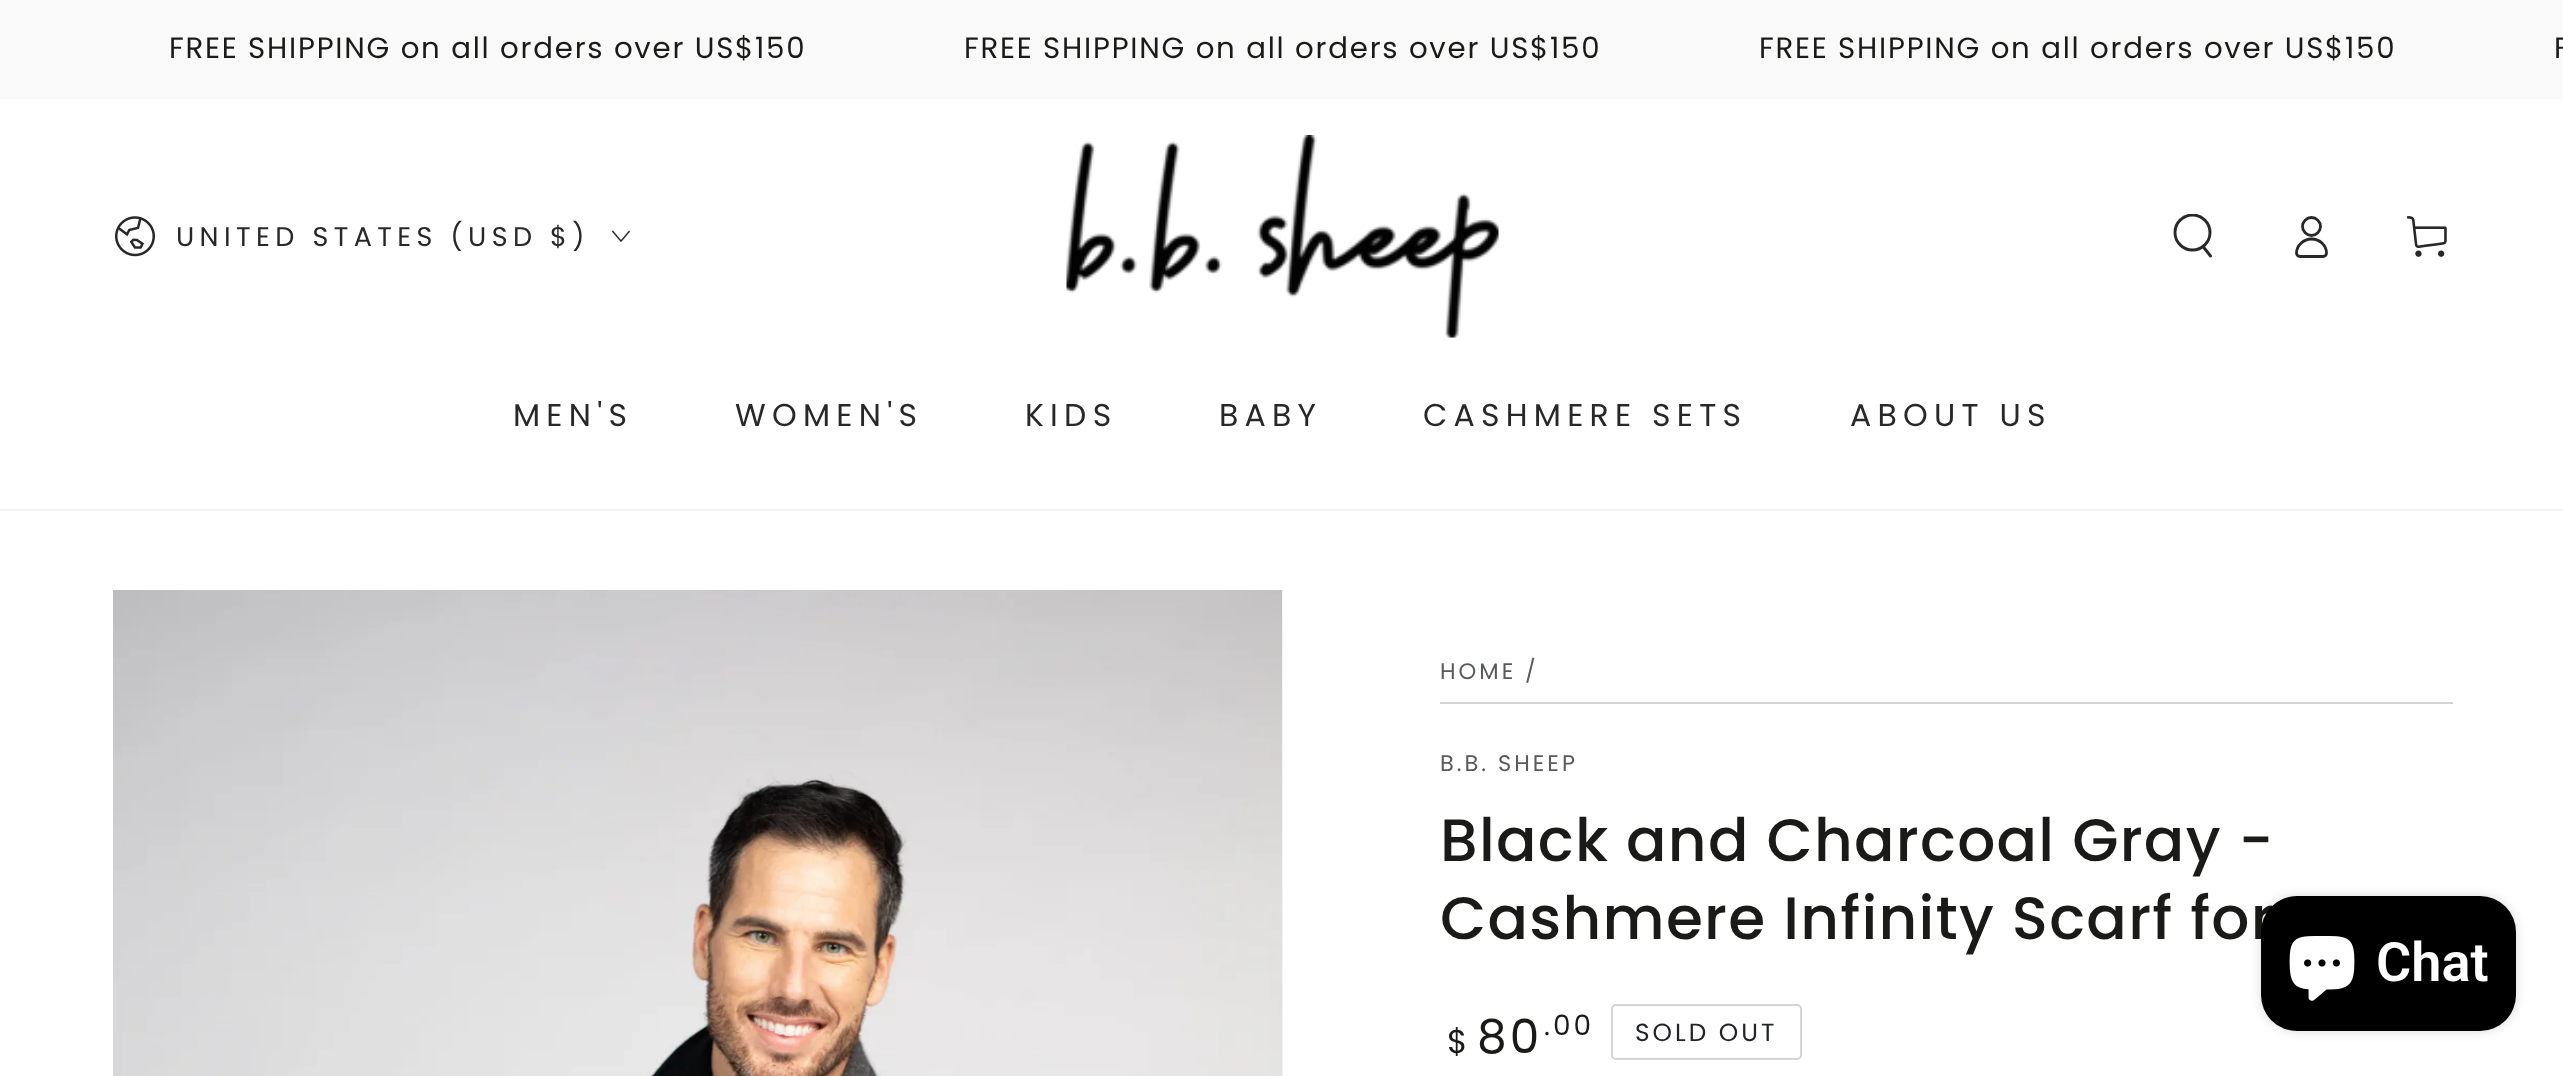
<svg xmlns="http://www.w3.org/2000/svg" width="2563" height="1076">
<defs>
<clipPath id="clip1"><rect x="2171" y="214" width="45" height="45"/></clipPath>
</defs>
<rect width="100%" height="100%" fill="#fff"/>
<rect width="2563" height="99" fill="#f9f9f9"/>
<text x="169" y="58" style="font-family:Poppins;font-size:29.25px;letter-spacing:1.75px;fill:#1a1b18">FREE SHIPPING on all orders over US$150</text>
<text x="964" y="58" style="font-family:Poppins;font-size:29.25px;letter-spacing:1.75px;fill:#1a1b18">FREE SHIPPING on all orders over US$150</text>
<text x="1759" y="58" style="font-family:Poppins;font-size:29.25px;letter-spacing:1.75px;fill:#1a1b18">FREE SHIPPING on all orders over US$150</text>
<text x="2554" y="58" style="font-family:Poppins;font-size:29.25px;letter-spacing:1.75px;fill:#1a1b18">F</text>
<rect y="509" width="2563" height="2" fill="#f2f2f4"/>
<image x="115" y="216" width="40" height="41" href="media/1.png"/>
<text x="176" y="246" style="font-family:Poppins;font-size:27px;letter-spacing:5.4px;fill:#282828">UNITED STATES (USD $)</text>
<image x="612" y="230" width="18" height="12" href="media/2.png"/>
<image x="1066" y="135" width="433" height="203" href="media/3.png"/>
<g clip-path="url(#clip1)">
<circle cx="2192.5" cy="232.5" r="17.5" fill="none" stroke="#282828" stroke-width="2.9"/>
</g>
<path d="M2203 246.5l7.5 9.5" fill="none" stroke="#282828" stroke-width="2.9" stroke-linecap="round"/>
<path d="M2311.5 239c-8 0-15 6.5-15 14c0 2 1.5 3.5 3.5 3.5h23c2 0 3.5-1.5 3.5-3.5c0-7.5-6.5-14-15-14z" fill="none" stroke="#282828" stroke-width="2.8"/>
<circle cx="2311.5" cy="226.5" r="9" fill="none" stroke="#282828" stroke-width="2.8"/>
<image x="2407" y="216" width="40" height="41" href="media/4.png"/>
<text x="513" y="426" style="font-family:Poppins;font-size:31.5px;letter-spacing:6.25px;fill:#282828">MEN'S</text>
<text x="735" y="426" style="font-family:Poppins;font-size:31.5px;letter-spacing:6.25px;fill:#282828">WOMEN'S</text>
<text x="1025" y="426" style="font-family:Poppins;font-size:31.5px;letter-spacing:6.25px;fill:#282828">KIDS</text>
<text x="1219" y="426" style="font-family:Poppins;font-size:31.5px;letter-spacing:6.25px;fill:#282828">BABY</text>
<text x="1423" y="426" style="font-family:Poppins;font-size:31.5px;letter-spacing:6.25px;fill:#282828">CASHMERE SETS</text>
<text x="1850" y="426" style="font-family:Poppins;font-size:31.5px;letter-spacing:6.25px;fill:#282828">ABOUT US</text>
<rect x="1282" y="590" width="1" height="486" fill="#f3f3f3"/>
<image x="113" y="590" width="1169" height="486" href="media/5.png"/>
<rect x="1440" y="702" width="1013" height="2" fill="#d2d5d9"/>
<text x="1440" y="679" style="font-family:Poppins;font-size:22.5px;letter-spacing:3px;fill:#595a5c">HOME</text>
<text x="1525" y="679" style="font-family:Poppins;font-size:22.5px;letter-spacing:3px;fill:#595a5c">/</text>
<text x="1440" y="771" style="font-family:Poppins;font-size:22.5px;letter-spacing:3px;fill:#595a5c">B.B. SHEEP</text>
<text x="1440" y="861" style="font-family:Poppins;font-size:59.8px;font-weight:500;letter-spacing:1.25px;fill:#1a1b18">Black and Charcoal Gray -</text>
<text x="1440" y="939" style="font-family:Poppins;font-size:59.8px;font-weight:500;letter-spacing:1.25px;fill:#1a1b18">Cashmere Infinity Scarf for</text>
<text x="1447" y="1053" style="font-family:Poppins;font-size:33px;letter-spacing:3px;fill:#1a1b18">$</text>
<text x="1477" y="1053" style="font-family:Poppins;font-size:47px;letter-spacing:3px;fill:#1a1b18">80</text>
<text x="1544" y="1035" style="font-family:Poppins;font-size:28px;letter-spacing:3px;fill:#1a1b18">.00</text>
<rect x="1612" y="1005" width="189" height="54" rx="4" fill="none" stroke="#d2d5d9" stroke-width="2"/>
<text x="1635" y="1041" style="font-family:Poppins;font-size:24.75px;letter-spacing:3px;fill:#212326">SOLD OUT</text>
<rect x="2261" y="896" width="255" height="135" rx="36" fill="#00000026" filter="blur(5.5px)"/>
<rect x="2261" y="896" width="255" height="135" rx="36" fill="#000"/>
<image x="2289" y="936" width="66" height="65" href="media/6.png"/>
<text x="2376" y="981" style="font-family:Roboto;font-size:54px;font-weight:600;fill:#fff">Chat</text>
</svg>
